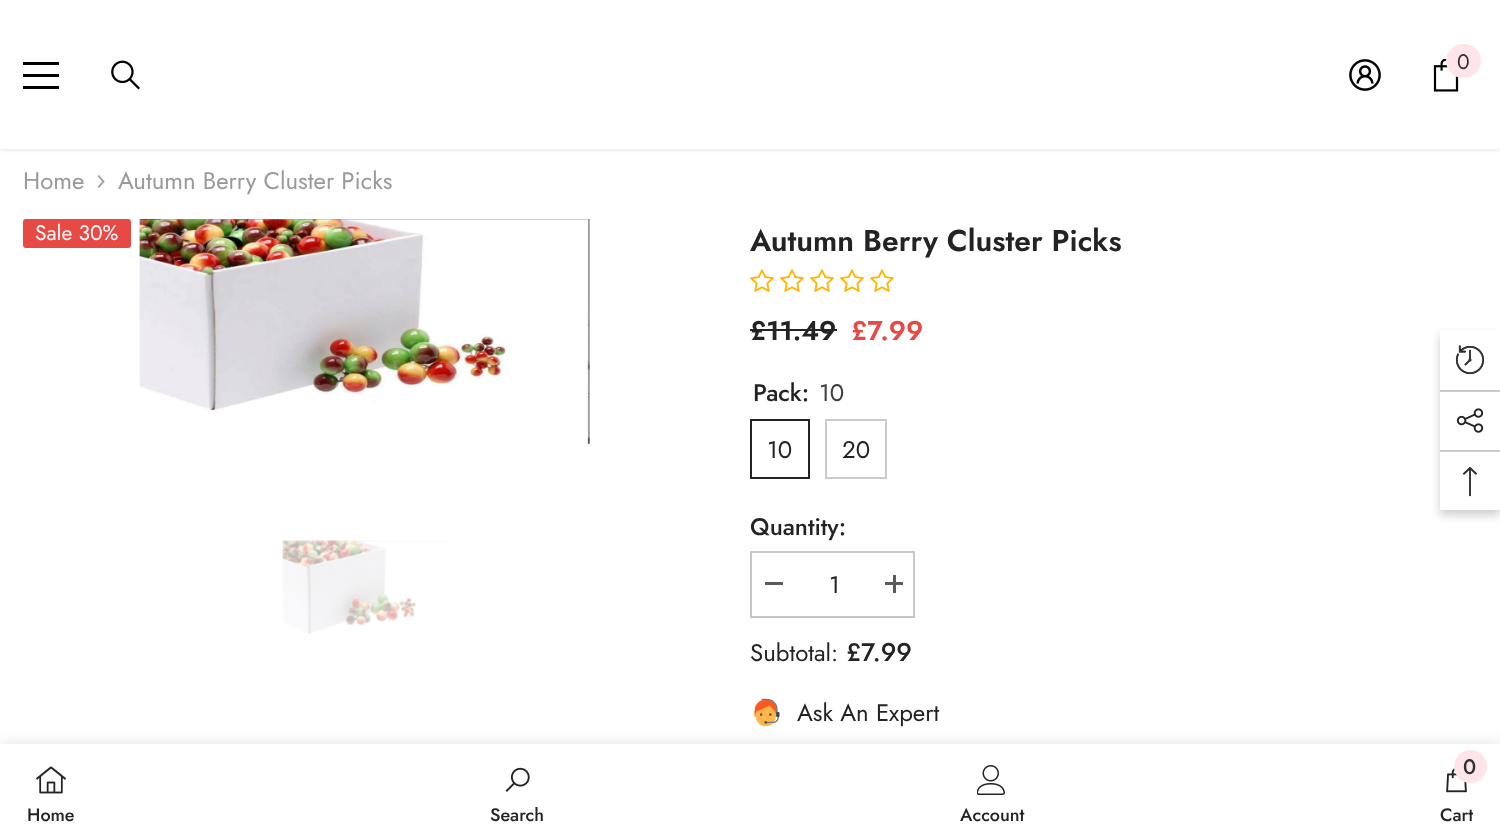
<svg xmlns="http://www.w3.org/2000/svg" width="1500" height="840">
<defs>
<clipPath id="clip1"><path d="M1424 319h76v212h-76zm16 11h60v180h-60z" clip-rule="evenodd"/></clipPath>
</defs>
<rect width="100%" height="100%" fill="#fff"/>
<rect y="2" width="1500" height="148" fill="#0000001a" filter="blur(2px)"/>
<rect width="1500" height="149" fill="#fff"/>
<rect x="23" y="74" width="36" height="3" fill="#000"/>
<rect x="23" y="62" width="36" height="3" fill="#000"/>
<rect x="23" y="86" width="36" height="3" fill="#000"/>
<image x="111" y="60" width="29" height="30" href="media/1.png"/>
<image x="1349" y="59" width="32" height="32" href="media/2.png"/>
<image x="1433" y="59" width="26" height="33" href="media/3.png"/>
<rect x="1446" y="44" width="35" height="34" rx="17" fill="#ffe5e8"/>
<text x="1457" y="69" style="font-family:Jost;font-size:21px;fill:#323232">0</text>
<text x="23" y="189" style="font-family:Jost;font-size:24px;fill:#999">Home</text>
<image x="97" y="175" width="8" height="13" href="media/4.png"/>
<text x="118" y="189" style="font-family:Jost;font-size:24px;fill:#999">Autumn Berry Cluster Picks</text>
<rect x="23" y="219" width="108" height="29" rx="3" fill="#e74a45"/>
<text x="35" y="240" style="font-family:Jost;font-size:21px;fill:#fff">Sale 30%</text>
<image x="139" y="219" width="451" height="225" href="media/5.png"/>
<image x="282" y="540" width="164" height="94" href="media/6.png"/>
<text x="750" y="251" style="font-family:Jost;font-size:30px;font-weight:600;fill:#232323">Autumn Berry Cluster Picks</text>
<image x="750" y="269" width="24" height="23" href="media/7.png"/>
<image x="780" y="269" width="24" height="23" href="media/7.png"/>
<image x="810" y="269" width="24" height="23" href="media/7.png"/>
<image x="840" y="269" width="24" height="23" href="media/7.png"/>
<image x="870" y="269" width="24" height="23" href="media/7.png"/>
<text x="750" y="340" style="font-family:Jost;font-size:27px;font-weight:600;fill:#232323">£11.49</text>
<rect x="750" y="329" width="87" height="2" fill="#232323"/>
<text x="851" y="340" style="font-family:Jost;font-size:27px;font-weight:600;fill:#e74a45">£7.99</text>
<text x="753" y="401" style="font-family:Jost;font-size:24px;font-weight:500;fill:#232323">Pack:</text>
<text x="819" y="401" style="font-family:Jost;font-size:24px;fill:#3c3c3c">10</text>
<rect x="751" y="420" width="58" height="58" fill="none" stroke="#232323" stroke-width="2"/>
<text x="767" y="458" style="font-family:Jost;font-size:24px;fill:#232323">10</text>
<rect x="826" y="420" width="60" height="58" fill="none" stroke="#cbcbcb" stroke-width="2"/>
<text x="842" y="458" style="font-family:Jost;font-size:24px;fill:#232323">20</text>
<text x="750" y="535" style="font-family:Jost;font-size:24px;font-weight:500;fill:#232323">Quantity:</text>
<rect x="751" y="552" width="163" height="65" fill="none" stroke="#c7c7c7" stroke-width="2"/>
<rect x="765" y="582" width="18" height="3" fill="#5a5a5a"/>
<text x="829" y="593" style="font-family:Jost;font-size:24px;fill:#232323">1</text>
<rect x="885" y="582" width="18" height="3" fill="#5a5a5a"/>
<rect x="893" y="575" width="3" height="18" fill="#5a5a5a"/>
<text x="750" y="661" style="font-family:Jost;font-size:24px;fill:#232323">Subtotal:</text>
<text x="846" y="661" style="font-family:Jost;font-size:25.5px;font-weight:500;fill:#232323">£7.99</text>
<image x="754" y="698" width="26" height="29" href="media/8.png"/>
<text x="797" y="721" style="font-family:Jost;font-size:24px;fill:#232323">Ask An Expert</text>
<rect y="744" width="1500" height="96" fill="#0000001f" filter="blur(7px)"/>
<rect y="744" width="1500" height="96" fill="#fff"/>
<image x="36" y="766" width="30" height="28" href="media/9.png"/>
<text x="27" y="821" style="font-family:Jost;font-size:18px;font-weight:500;fill:#232323">Home</text>
<image x="505" y="767" width="25" height="25" href="media/10.png"/>
<text x="490" y="821" style="font-family:Jost;font-size:18px;font-weight:500;fill:#232323">Search</text>
<image x="977" y="765" width="28" height="30" href="media/11.png"/>
<text x="960" y="821" style="font-family:Jost;font-size:18px;font-weight:500;fill:#232323">Account</text>
<image x="1446" y="768" width="21" height="25" href="media/12.png"/>
<circle cx="1470.5" cy="766.5" r="16.5" fill="#ffe5e8"/>
<text x="1463" y="774" style="font-family:Jost;font-size:21px;font-weight:500;fill:#323232">0</text>
<text x="1440" y="821" style="font-family:Jost;font-size:18px;font-weight:500;fill:#232323">Cart</text>
<g clip-path="url(#clip1)">
<rect x="1440" y="335" width="60" height="180" fill="#00000033" filter="blur(5px)"/>
</g>
<image x="1455" y="345" width="30" height="30" href="media/13.png"/>
<rect x="1440" y="390" width="60" height="2" fill="#ccc"/>
<image x="1456" y="408" width="28" height="25" href="media/14.png"/>
<rect x="1440" y="450" width="60" height="2" fill="#ccc"/>
<image x="1463" y="467" width="14" height="30" href="media/15.png"/>
</svg>
